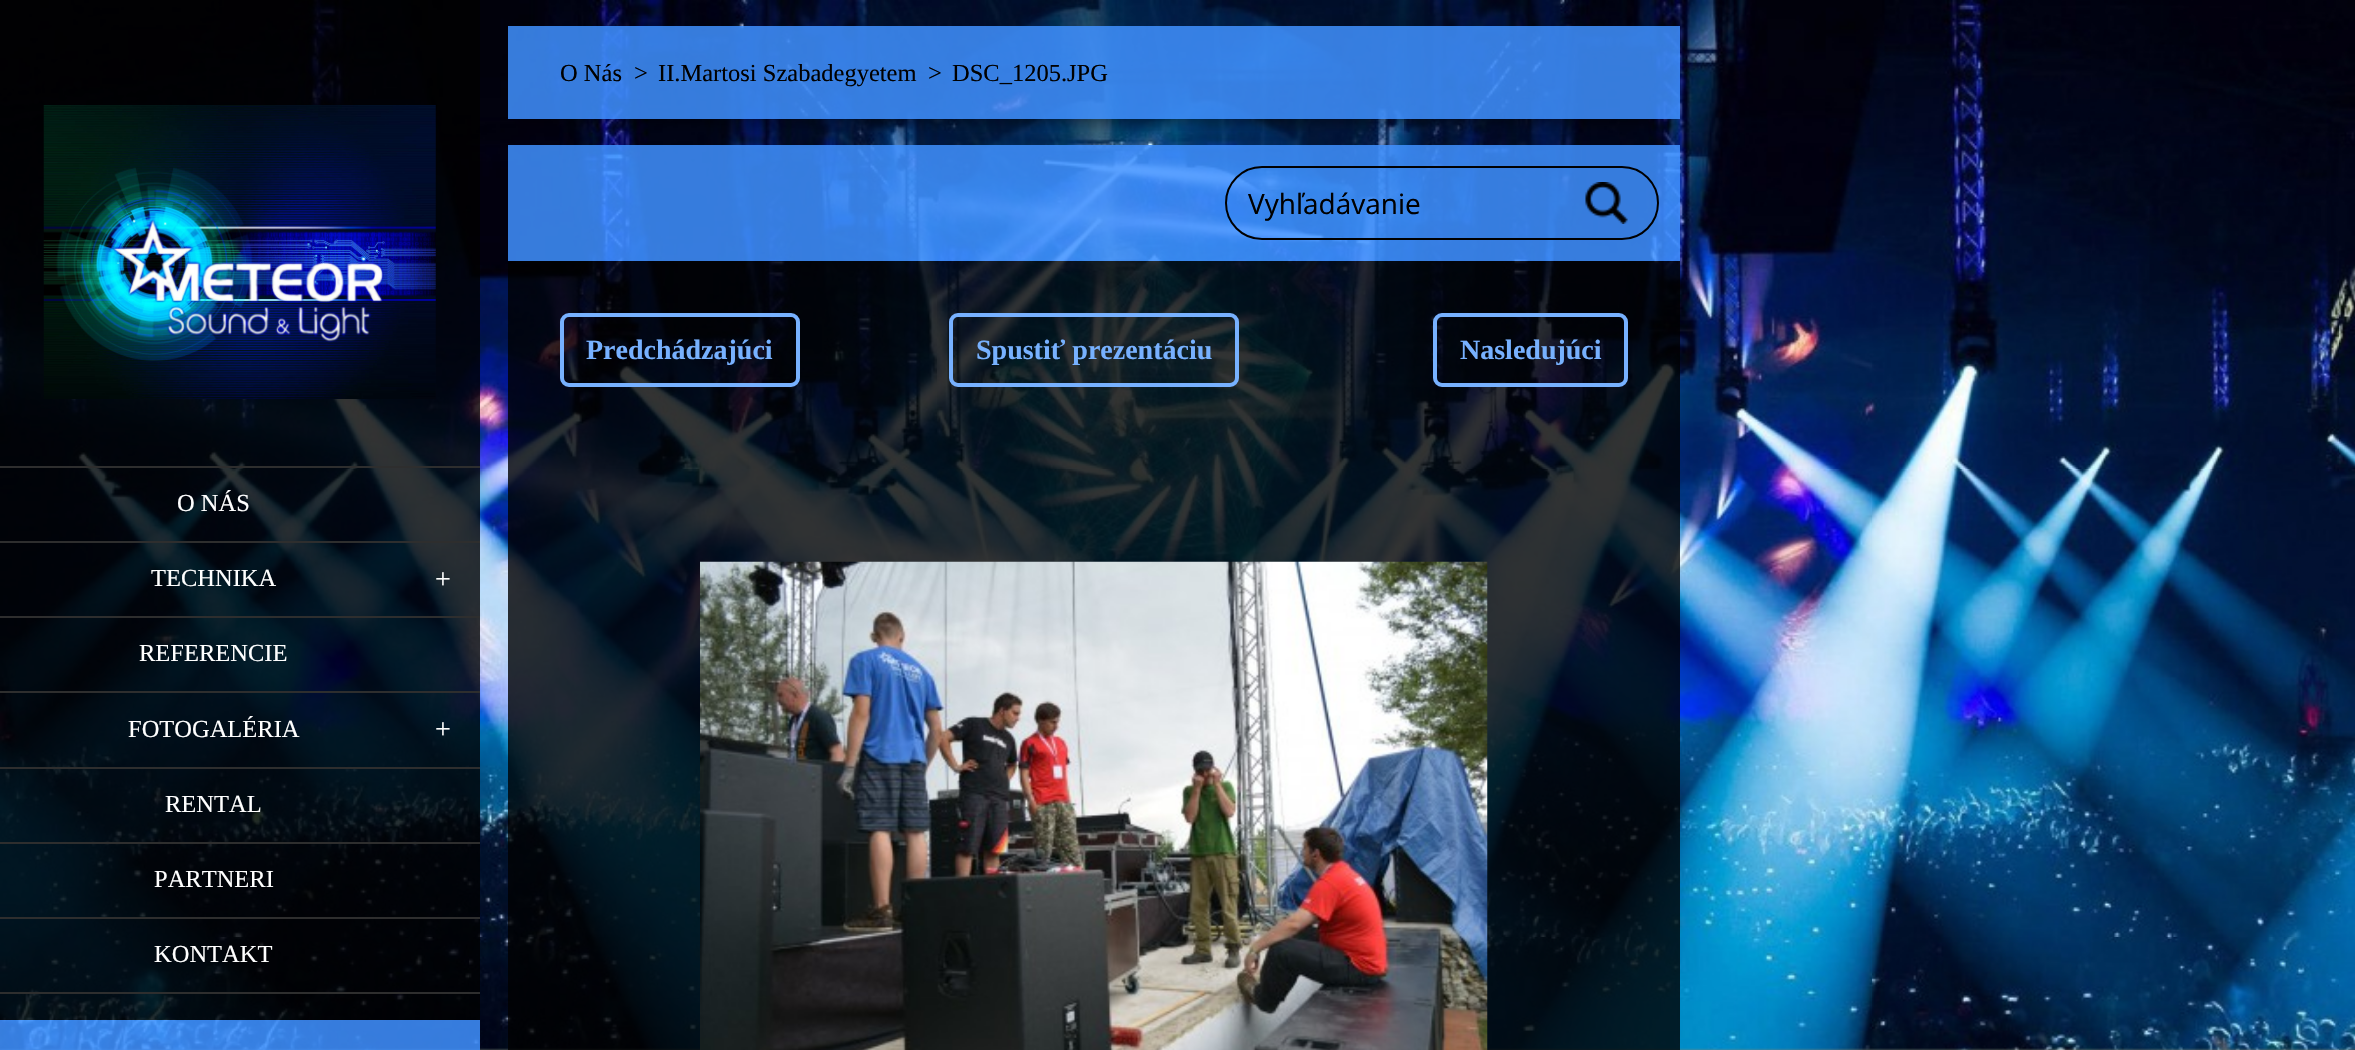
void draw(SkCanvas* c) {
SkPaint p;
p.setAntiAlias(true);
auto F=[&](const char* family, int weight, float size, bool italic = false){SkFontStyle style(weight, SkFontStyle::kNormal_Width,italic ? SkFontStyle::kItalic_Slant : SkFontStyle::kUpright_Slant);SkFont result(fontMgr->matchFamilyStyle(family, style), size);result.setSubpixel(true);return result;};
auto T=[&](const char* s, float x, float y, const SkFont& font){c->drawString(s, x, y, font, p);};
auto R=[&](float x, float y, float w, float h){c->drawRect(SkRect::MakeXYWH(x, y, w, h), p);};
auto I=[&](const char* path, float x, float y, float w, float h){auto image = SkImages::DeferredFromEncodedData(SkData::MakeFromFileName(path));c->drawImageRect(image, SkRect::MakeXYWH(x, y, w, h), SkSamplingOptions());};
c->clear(0xff7b8577);
I("1.png",0,0,2355,1050);
c->save();
c->clipRect(SkRect::MakeXYWH(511,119,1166,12));
p.setColor(0x59000000);
p.setMaskFilter(SkMaskFilter::MakeBlur(kNormal_SkBlurStyle, 5));
c->drawRect(SkRect::MakeXYWH(518,51,1152,72),p);
p.setMaskFilter(nullptr);
c->restore();
p.setColor(0xd93f91ff);
R(508,26,1172,93);
auto f1 = F("Liberation Serif",400,24.5);
p.setColor(0xff000000);
T("O Nás",560,81,f1);
T(">",634,81,f1);
T("II.Martosi Szabadegyetem",658,81,f1);
T(">",928,81,f1);
T("DSC_1205.JPG",952,81,f1);
p.setColor(0xd93f91ff);
R(508,145,1172,116);
p.setStroke(true);
p.setStrokeWidth(2);
p.setColor(0xff000000);
c->drawRoundRect(SkRect::MakeXYWH(1226,167,432,72),36,36,p);
auto f2 = F("Open Sans",400,28);
p.setStroke(false);
T("Vyhľadávanie",1248,214,f2);
I("2.png",1585,182,43,42);
p.setColor(0xcc000000);
R(508,261,1172,789);
p.setStroke(true);
p.setStrokeWidth(4);
p.setColor(0xff77b1ff);
c->drawRoundRect(SkRect::MakeXYWH(562,315,236,70),7,7,p);
auto f3 = F("Liberation Serif",700,28);
p.setStroke(false);
T("Predchádzajúci",586,359,f3);
p.setStroke(true);
c->drawRoundRect(SkRect::MakeXYWH(951,315,286,70),7,7,p);
p.setStroke(false);
T("Spustiť prezentáciu",976,359,f3);
p.setStroke(true);
c->drawRoundRect(SkRect::MakeXYWH(1435,315,191,70),7,7,p);
p.setStroke(false);
T("Nasledujúci",1460,359,f3);
I("3.png",700,561,788,489);
p.setColor(0xcc000000);
R(0,0,480,422);
I("4.png",43,105,393,294);
R(0,422,480,44);
R(0,468,480,524);
p.setColor(0xff2e2e2e);
R(0,466,480,2);
R(0,541,480,2);
p.setColor(0xffffffff);
T("O NÁS",177,511,f1);
p.setColor(0xff2e2e2e);
R(0,616,480,2);
p.setColor(0xffffffff);
T("TECHNIKA",151,586,f1);
auto f4 = F("Liberation Serif",400,28);
T("+",435,588,f4);
p.setColor(0xff2e2e2e);
R(0,691,480,2);
p.setColor(0xffffffff);
T("REFERENCIE",139,661,f1);
p.setColor(0xff2e2e2e);
R(0,767,480,2);
p.setColor(0xffffffff);
T("FOTOGALÉRIA",128,737,f1);
T("+",435,738,f4);
p.setColor(0xff2e2e2e);
R(0,842,480,2);
p.setColor(0xffffffff);
T("RENTAL",165,812,f1);
p.setColor(0xff2e2e2e);
R(0,917,480,2);
p.setColor(0xffffffff);
T("PARTNERI",154,887,f1);
p.setColor(0xff2e2e2e);
R(0,992,480,2);
p.setColor(0xffffffff);
T("KONTAKT",154,962,f1);
p.setColor(0xcc000000);
R(0,994,480,26);
p.setColor(0xd93f91ff);
R(0,1020,480,30);
}
